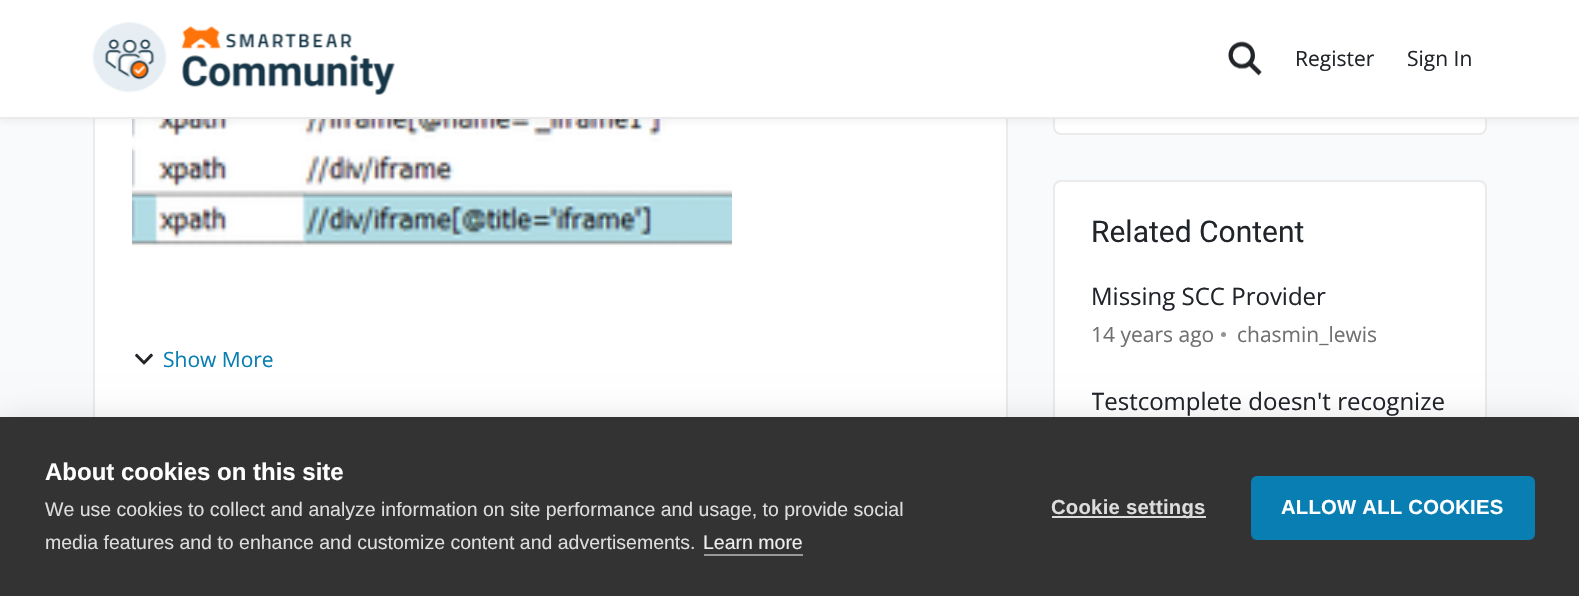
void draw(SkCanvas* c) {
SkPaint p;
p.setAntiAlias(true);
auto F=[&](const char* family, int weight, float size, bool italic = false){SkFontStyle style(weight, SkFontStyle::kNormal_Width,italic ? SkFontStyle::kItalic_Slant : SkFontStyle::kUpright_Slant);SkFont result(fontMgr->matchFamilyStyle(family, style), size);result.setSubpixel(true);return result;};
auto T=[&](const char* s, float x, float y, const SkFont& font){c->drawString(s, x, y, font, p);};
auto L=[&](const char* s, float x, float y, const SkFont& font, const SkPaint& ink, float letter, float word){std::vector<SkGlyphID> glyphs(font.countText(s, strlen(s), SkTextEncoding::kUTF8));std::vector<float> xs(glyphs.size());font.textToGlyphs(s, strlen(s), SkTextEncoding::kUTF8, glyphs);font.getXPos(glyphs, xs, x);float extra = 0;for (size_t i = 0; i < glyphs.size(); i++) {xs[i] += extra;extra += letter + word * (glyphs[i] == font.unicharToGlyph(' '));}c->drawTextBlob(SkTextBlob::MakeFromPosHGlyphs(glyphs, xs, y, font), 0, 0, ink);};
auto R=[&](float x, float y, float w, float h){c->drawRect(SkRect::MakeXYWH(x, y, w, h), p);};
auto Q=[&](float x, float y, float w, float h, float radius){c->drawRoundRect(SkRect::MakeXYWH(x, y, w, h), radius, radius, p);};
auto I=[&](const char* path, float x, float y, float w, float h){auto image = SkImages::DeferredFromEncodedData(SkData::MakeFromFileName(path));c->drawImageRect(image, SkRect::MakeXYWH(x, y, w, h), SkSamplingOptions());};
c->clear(0xfff8fafb);
p.setColor(0xffffffff);
R(93,119,915,298);
p.setStroke(true);
p.setStrokeWidth(2);
p.setColor(0x14000000);
c->drawRect(SkRect::MakeXYWH(94,-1,913,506),p);
I("3.png",132,119,600,128);
p.setStroke(false);
p.setColor(0xffffffff);
Q(1053,-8,434,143,8);
p.setStroke(true);
p.setColor(0x14000000);
c->drawRoundRect(SkRect::MakeXYWH(1054,-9,432,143),7,7,p);
p.setStroke(false);
p.setColor(0x0f333333);
p.setMaskFilter(SkMaskFilter::MakeBlur(kNormal_SkBlurStyle, 3));
c->drawRect(SkRect::MakeXYWH(0,3,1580,119),p);
p.setMaskFilter(nullptr);
p.setColor(0xffffffff);
R(0,0,1579,117);
p.setColor(0xffebebeb);
R(0,117,1579,2);
I("1.png",92,22,303,73);
I("2.png",1228,41,34,35);
auto f1 = F("Open Sans",400,21);
p.setColor(0xff212429);
T("Register",1295,66,f1);
T("Sign In",1407,66,f1);
I("4.png",135,353,18,12);
p.setColor(0xff097eb2);
T("Show More",163,367,f1);
p.setColor(0xffffffff);
Q(1053,180,434,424,8);
p.setStroke(true);
p.setColor(0x14000000);
c->drawRoundRect(SkRect::MakeXYWH(1054,181,432,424),7,7,p);
auto f2 = F("Roboto",400,30);
p.setStroke(false);
p.setColor(0xff212429);
T("Related Content",1091,242,f2);
auto f3 = F("Open Sans",400,24);
T("Missing SCC Provider",1091,305,f3);
p.setColor(0xff707070);
T("14 years ago",1091,342,f1);
p.setColor(0xff949494);
c->drawCircle(1223.5,334.5,2.5,p);
p.setColor(0xff707070);
T("chasmin_lewis",1237,342,f1);
c->save();
c->clipRect(SkRect::MakeXYWH(1092,387,356,62));
p.setColor(0xff212429);
T("Testcomplete doesn't recognize",1091,410,f3);
c->restore();
p.setColor(0x1a000000);
p.setMaskFilter(SkMaskFilter::MakeBlur(kNormal_SkBlurStyle, 15));
c->drawRect(SkRect::MakeXYWH(0,417,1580,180),p);
p.setMaskFilter(nullptr);
p.setColor(0xff333333);
R(0,417,1579,179);
auto f4 = F("Liberation Sans",700,24);
p.setColor(0xffffffff);
T("About cookies on this site",45,480,f4);
auto f5 = F("Liberation Sans",400,19.5);
p.setColor(0xffdddddd);
T("We use cookies to collect and analyze information on site performance and usage, to provide social",45,516,f5);
T("media features and to enhance and customize content and advertisements.",45,549,f5);
p.setColor(0xffeeeeee);
T("Learn more",703,549,f5);
p.setColor(0xff999999);
R(704,554,99,2);
p.setColor(0xffdddddd);
R(1052,516,154,2);
auto f6 = F("Liberation Sans",700,20.25);
L("Cookie settings",1051,514,f6,p,.25,0);
p.setColor(0xff097eb2);
Q(1251,476,284,64,6);
p.setColor(0xffffffff);
L("ALLOW ALL COOKIES",1281,514,f6,p,.25,0);
}
